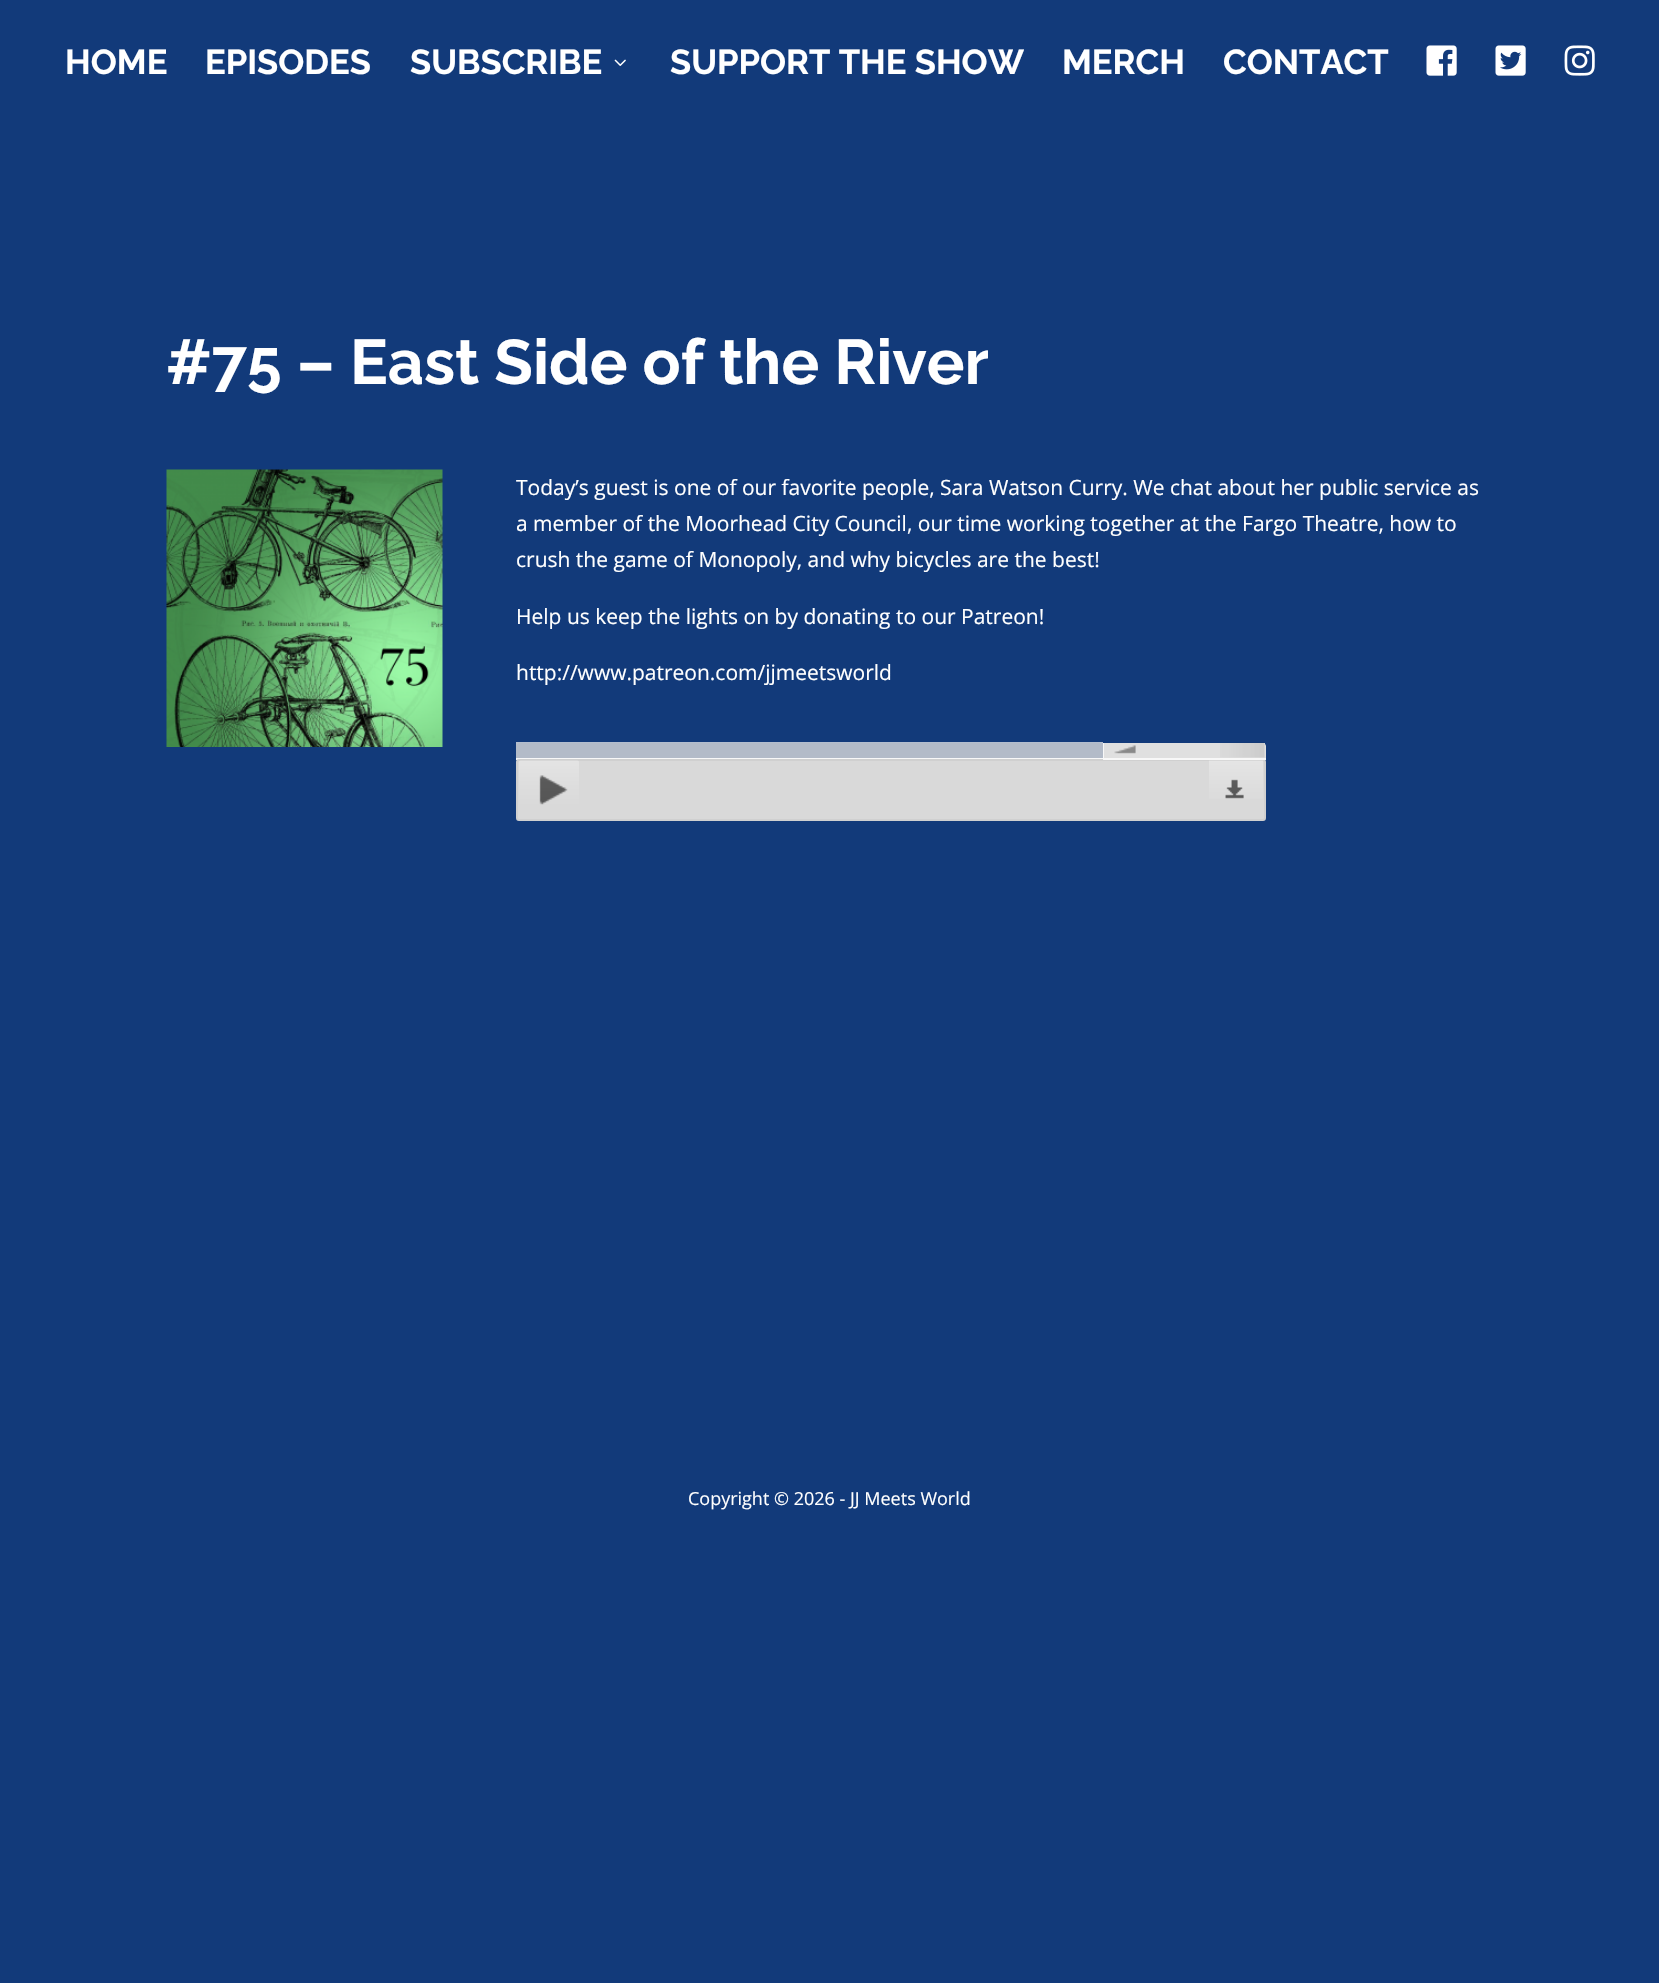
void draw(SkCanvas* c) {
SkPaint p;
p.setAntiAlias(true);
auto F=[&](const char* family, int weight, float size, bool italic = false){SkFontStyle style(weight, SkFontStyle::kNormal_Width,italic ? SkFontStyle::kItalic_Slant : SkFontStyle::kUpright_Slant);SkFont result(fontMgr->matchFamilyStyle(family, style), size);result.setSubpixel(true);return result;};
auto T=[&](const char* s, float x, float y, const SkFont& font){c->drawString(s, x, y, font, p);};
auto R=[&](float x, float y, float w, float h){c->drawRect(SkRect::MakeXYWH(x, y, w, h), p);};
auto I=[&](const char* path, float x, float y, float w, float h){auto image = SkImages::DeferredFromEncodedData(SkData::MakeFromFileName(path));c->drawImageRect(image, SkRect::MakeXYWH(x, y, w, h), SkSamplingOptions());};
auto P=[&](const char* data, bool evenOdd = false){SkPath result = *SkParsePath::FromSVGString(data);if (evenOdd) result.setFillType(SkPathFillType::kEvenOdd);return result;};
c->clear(0xff123a7a);
auto f1 = F("Raleway",700,34.5);
p.setColor(0xffffffff);
T("HOME",65,74,f1);
T("EPISODES",205,74,f1);
T("SUBSCRIBE",410,74,f1);
I("1.png",614,59,12,7);
T("SUPPORT THE SHOW",670,74,f1);
T("MERCH",1062,74,f1);
T("CONTACT",1223,74,f1);
I("2.png",1426,45,31,31);
I("3.png",1495,45,31,31);
I("4.png",1564,45,31,31);
auto f2 = F("Raleway",700,63);
T("#75 – East Side of the River",166,384,f2);
I("5.png",166,469,277,278);
auto f3 = F("Open Sans",400,21);
T("Today’s guest is one of our favorite people, Sara Watson Curry. We chat about her public service as",516,495,f3);
T("a member of the Moorhead City Council, our time working together at the Fargo Theatre, how to",516,531,f3);
T("crush the game of Monopoly, and why bicycles are the best!",516,567,f3);
T("Help us keep the lights on by donating to our Patreon!",516,624,f3);
T("http://www.patreon.com/jjmeetsworld",516,680,f3);
p.setColor(0xff0f3064);
c->drawPath(P("M519 743h744c1.5 0 3 1.5 3 3v13h-750v-13c0-1.5 1.5-3 3-3z"),p);
p.setColor(0xbfeaeaea);
R(516,742,587,16);
p.setColor(0xfff8f8f8);
R(516,758,587,2);
p.setColor(0xffd9d9d9);
c->drawRoundRect(SkRect::MakeXYWH(517,760,748,60),2,2,p);
p.setStroke(true);
p.setStrokeWidth(2);
p.setColor(0xffd0d0d0);
c->drawRoundRect(SkRect::MakeXYWH(517,760,748,60),2,2,p);
I("6.png",519,760,60,45);
I("7.png",1209,760,54,39);
p.setStroke(false);
p.setColor(0xffe0e0e0);
c->drawPath(P("M1103 743h160c1.5 0 3 1.5 3 3v13h-163z"),p);
p.setColor(0xfff8f8f8);
R(1103,758,163,2);
R(1103,743,2,16);
p.setColor(0xffe0e0e0);
R(1104,743,1,15);
I("8.png",1114,745,22,9);
R(1263,743,2,1);
I("9.png",1220,742,45,16);
auto f4 = F("Open Sans",400,18);
p.setColor(0xffffffff);
T("Copyright © 2026 - JJ Meets World",688,1505,f4);
}
